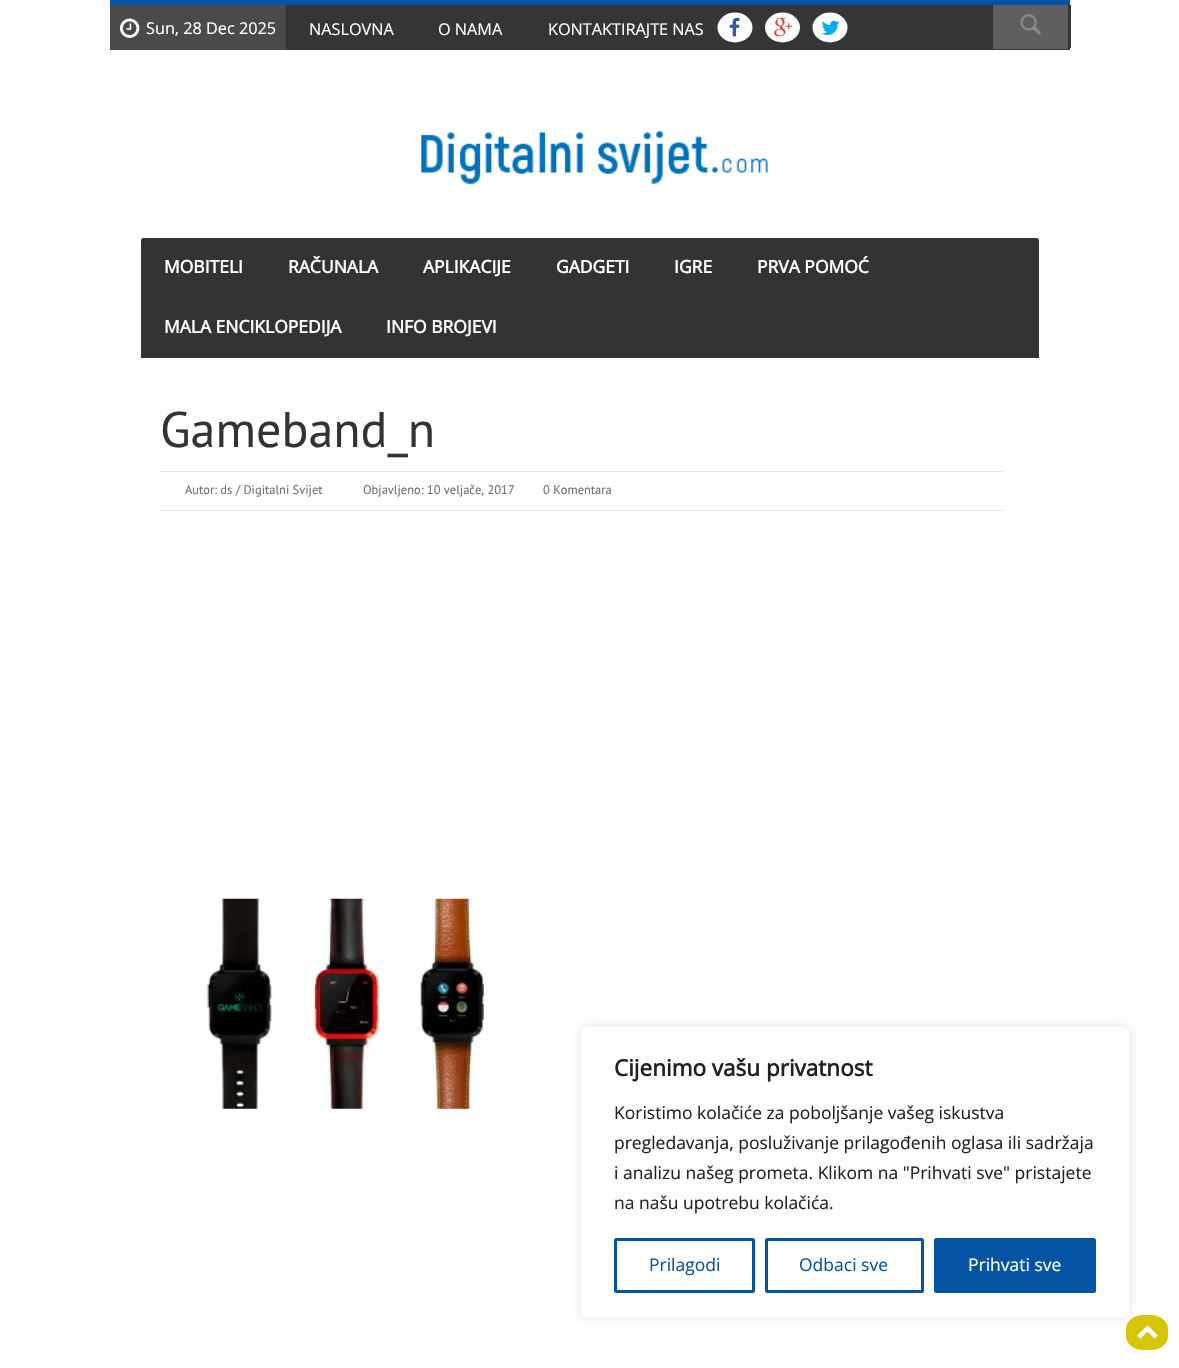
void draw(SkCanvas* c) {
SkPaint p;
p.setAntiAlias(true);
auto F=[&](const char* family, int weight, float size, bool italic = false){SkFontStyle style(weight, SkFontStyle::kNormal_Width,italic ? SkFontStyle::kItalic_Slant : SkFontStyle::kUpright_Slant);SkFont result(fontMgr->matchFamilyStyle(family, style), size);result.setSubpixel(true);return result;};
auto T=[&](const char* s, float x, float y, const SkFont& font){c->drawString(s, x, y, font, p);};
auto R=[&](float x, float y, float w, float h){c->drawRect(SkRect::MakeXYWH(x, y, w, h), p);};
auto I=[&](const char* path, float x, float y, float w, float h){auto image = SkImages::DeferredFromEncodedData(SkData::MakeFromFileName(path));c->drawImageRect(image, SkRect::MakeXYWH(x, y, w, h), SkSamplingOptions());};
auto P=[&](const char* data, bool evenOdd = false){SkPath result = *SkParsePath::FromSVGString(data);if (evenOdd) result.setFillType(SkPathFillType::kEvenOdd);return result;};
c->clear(0xffffffff);
p.setColor(0xff0554a3);
R(110,0,960,5);
p.setColor(0xff353535);
R(1070,5,1,43);
R(286,5,784,45);
p.setColor(0xfffdfdfd);
c->drawOval(SkRect::MakeXYWH(717.5,12.5,35,30),p);
I("1.png",729,17,11,20);
c->drawOval(SkRect::MakeXYWH(765,12.5,35,30),p);
I("2.png",774,17,18,20);
c->drawOval(SkRect::MakeXYWH(812.5,12.5,35,30),p);
I("3.png",822,20,18,15);
p.setColor(0xff4a4a4a);
R(110,5,176,45);
I("4.png",120,18,20,20);
auto f1 = F("Open Sans",400,16.25);
p.setColor(0xffffffff);
T("Sun, 28 Dec 2025",146,34,f1);
T("NASLOVNA",309,35,f1);
T("O NAMA",438,35,f1);
T("KONTAKTIRAJTE NAS",548,35,f1);
p.setColor(0xff5f5f5f);
R(993,5,75,44);
I("5.png",1020,13,22,22);
I("6.png",421,131,347,53);
p.setColor(0xff333333);
c->drawPath(P("M143.5 238h893c1.5 0 2.5 1 2.5 2.5v117.5h-898v-117.5c0-1.5 1-2.5 2.5-2.5z"),p);
auto f2 = F("Open Sans",700,17.5);
p.setColor(0xffffffff);
T("MOBITELI",164,273,f2);
T("RAČUNALA",288,273,f2);
T("APLIKACIJE",423,273,f2);
T("GADGETI",556,273,f2);
T("IGRE",674,273,f2);
T("PRVA POMOĆ",757,273,f2);
T("MALA ENCIKLOPEDIJA",164,333,f2);
T("INFO BROJEVI",386,333,f2);
auto f3 = F("PT Sans",400,50);
p.setColor(0xff333333);
T("Gameband_n",160,447,f3);
p.setColor(0xffe4e4e4);
R(160,471,843,1);
R(160,510,843,1);
auto f4 = F("PT Sans",400,12.5);
p.setColor(0xff707070);
T("Autor: ds / Digitalni Svijet",185,494,f4);
T("Objavljeno: 10 veljače, 2017",363,494,f4);
T("0 Komentara",543,494,f4);
I("7.png",205,898,280,211);
p.setColor(0xffd7c50a);
c->drawPath(P("M1143 1315h8c9 0 17 6 17 14v7c0 8-8 14-17 14h-8c-9 0-17-6-17-14v-7c0-8 8-14 17-14z"),p);
I("8.png",1137,1325,21,14);
p.setColor(0x4dacabab);
p.setMaskFilter(SkMaskFilter::MakeBlur(kNormal_SkBlurStyle, 6));
c->drawRoundRect(SkRect::MakeXYWH(580,1025,550,293),8,8,p);
p.setMaskFilter(nullptr);
p.setColor(0xffffffff);
c->drawRoundRect(SkRect::MakeXYWH(580.5,1026.5,549,292),7.5,7.5,p);
p.setStroke(true);
p.setStrokeWidth(1);
p.setColor(0xfff4f4f4);
c->drawRoundRect(SkRect::MakeXYWH(580.5,1026.5,549,292),7.5,7.5,p);
auto f5 = F("Open Sans",700,22.5);
p.setStroke(false);
p.setColor(0xff212121);
T("Cijenimo vašu privatnost",614,1076,f5);
auto f6 = F("Open Sans",400,17.5);
T("Koristimo kolačiće za poboljšanje vašeg iskustva",614,1119,f6);
T("pregledavanja, posluživanje prilagođenih oglasa ili sadržaja",614,1149,f6);
T("i analizu našeg prometa. Klikom na \"Prihvati sve\" pristajete",614,1179,f6);
T("na našu upotrebu kolačića.",614,1209,f6);
p.setStroke(true);
p.setStrokeWidth(3);
p.setColor(0xff0554a3);
c->drawRoundRect(SkRect::MakeXYWH(615.5,1239.5,138,52),1,1,p);
p.setStroke(false);
T("Prilagodi",649,1271,f6);
p.setStroke(true);
c->drawRoundRect(SkRect::MakeXYWH(766.5,1239.5,156,52),1,1,p);
p.setStroke(false);
T("Odbaci sve",799,1271,f6);
c->drawRoundRect(SkRect::MakeXYWH(935.5,1239.5,159,52),1,1,p);
p.setStroke(true);
c->drawRoundRect(SkRect::MakeXYWH(935.5,1239.5,159,52),1,1,p);
p.setStroke(false);
p.setColor(0xffffffff);
T("Prihvati sve",968,1271,f6);
}
